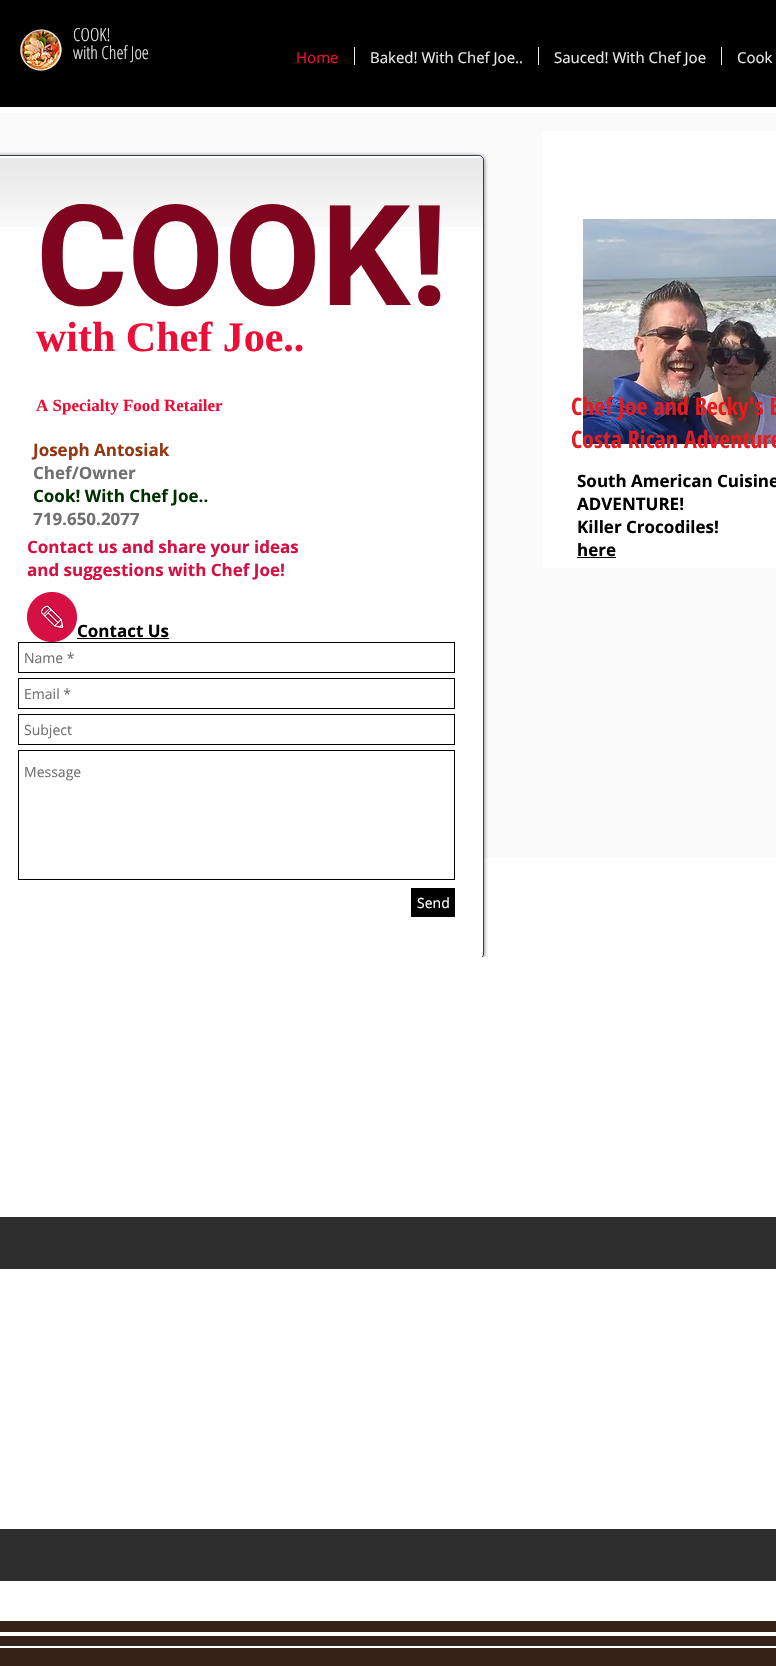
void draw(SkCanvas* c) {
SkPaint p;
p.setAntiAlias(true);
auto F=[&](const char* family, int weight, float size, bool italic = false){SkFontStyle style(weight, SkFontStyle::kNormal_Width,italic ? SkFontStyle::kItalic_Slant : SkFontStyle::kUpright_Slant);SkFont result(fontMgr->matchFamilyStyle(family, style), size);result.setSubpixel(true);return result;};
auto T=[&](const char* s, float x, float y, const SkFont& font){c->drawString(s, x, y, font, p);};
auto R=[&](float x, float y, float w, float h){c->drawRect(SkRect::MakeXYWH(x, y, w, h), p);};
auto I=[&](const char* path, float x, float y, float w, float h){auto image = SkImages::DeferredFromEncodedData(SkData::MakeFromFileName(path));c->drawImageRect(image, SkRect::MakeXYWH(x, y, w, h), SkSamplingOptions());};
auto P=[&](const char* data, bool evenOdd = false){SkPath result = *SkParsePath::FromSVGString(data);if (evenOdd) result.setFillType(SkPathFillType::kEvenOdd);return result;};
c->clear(0xffffffff);
p.setColor(0xff000000);
R(0,0,776,107);
I("1.png",20,29,42,42);
auto f1 = F("Open Sans Condensed",300,18);
p.setColor(0xffeaeaea);
T("COOK!",73,41,f1);
T("with Chef Joe",73,59,f1);
auto f2 = F("Open Sans",400,15);
p.setColor(0xffed0e37);
T("Home",296,63,f2);
p.setColor(0xffeaeaea);
R(354,47,1,18);
T("Baked! With Chef Joe..",370,63,f2);
R(538,47,1,18);
T("Sauced! With Chef Joe",554,63,f2);
R(721,47,1,18);
T("Cook",737,63,f2);
p.setColor(0xfffafafa);
R(0,113,776,745);
p.setColor(0x99000000);
p.setMaskFilter(SkMaskFilter::MakeBlur(kNormal_SkBlurStyle, 2));
c->drawRoundRect(SkRect::MakeXYWH(-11,156,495,804),5,5,p);
p.setMaskFilter(nullptr);
p.setColor(0xffffffff);
c->drawPath(P("M0 155h479c3 0 5 2 5 5v794c0 3-2 5-5 5h-479z"),p);
I("2.png",0,158,484,69);
p.setStroke(true);
p.setStrokeWidth(1);
p.setColor(0xff324158);
c->drawRoundRect(SkRect::MakeXYWH(-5.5,155.5,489,803),4.5,4.5,p);
auto f3 = F("Roboto",700,140);
p.setStroke(false);
p.setColor(0xff7f051e);
T("COOK!",36,305,f3);
auto f4 = F("Liberation Serif",700,42);
p.setColor(0xffed0e37);
T("with Chef Joe..",36,351,f4);
auto f5 = F("Liberation Serif",700,17);
T("A Specialty Food Retailer",36,411,f5);
auto f6 = F("Open Sans",700,17);
p.setColor(0xff943813);
T("Joseph Antosiak",33,456,f6);
p.setColor(0xff717070);
T("Chef/Owner",33,479,f6);
p.setColor(0xff003000);
T("Cook! With Chef Joe..",33,502,f6);
p.setColor(0xff717070);
T("719.650.2077",33,525,f6);
p.setColor(0xffd61043);
T("Contact us and share your ideas",27,553,f6);
T("and suggestions with Chef Joe!",27,576,f6);
I("3.png",27,592,50,50);
p.setColor(0xff000000);
T("Contact Us",77,637,f6);
R(77,638,92,1);
p.setStroke(true);
c->drawRect(SkRect::MakeXYWH(18.5,642.5,436,30),p);
auto f7 = F("Open Sans",400,14);
p.setStroke(false);
p.setColor(0xff717070);
T("Name *",24,663,f7);
p.setStroke(true);
p.setColor(0xff000000);
c->drawRect(SkRect::MakeXYWH(18.5,678.5,436,30),p);
p.setStroke(false);
p.setColor(0xff717070);
T("Email *",24,699,f7);
p.setStroke(true);
p.setColor(0xff000000);
c->drawRect(SkRect::MakeXYWH(18.5,714.5,436,30),p);
p.setStroke(false);
p.setColor(0xff717070);
T("Subject",24,735,f7);
p.setStroke(true);
p.setColor(0xff000000);
c->drawRect(SkRect::MakeXYWH(18.5,750.5,436,129),p);
p.setStroke(false);
p.setColor(0xff717070);
T("Message",24,777,f7);
p.setColor(0xff000000);
R(411,888,44,29);
p.setColor(0xffffffff);
T("Send",417,908,f7);
R(542,131,234,437);
I("4.png",583,219,193,225);
auto f8 = F("Open Sans Condensed",700,24);
p.setColor(0xffe21c21);
T("Chef Joe and Becky's E",571,415,f8);
T("Costa Rican Adventure",571,448,f8);
p.setColor(0xff000000);
T("South American Cuisine",577,487,f6);
T("ADVENTURE!",577,510,f6);
T("Killer Crocodiles!",577,533,f6);
T("here",577,556,f6);
R(577,557,39,1);
p.setColor(0xffffffff);
R(327,957,161,7);
R(0,958,327,6);
p.setColor(0xff2f2e2e);
R(0,1217,776,52);
R(0,1529,776,52);
p.setColor(0xff342216);
R(0,1621,776,45);
p.setColor(0xffffffff);
R(0,1632,776,4);
R(0,1646,776,2);
}
